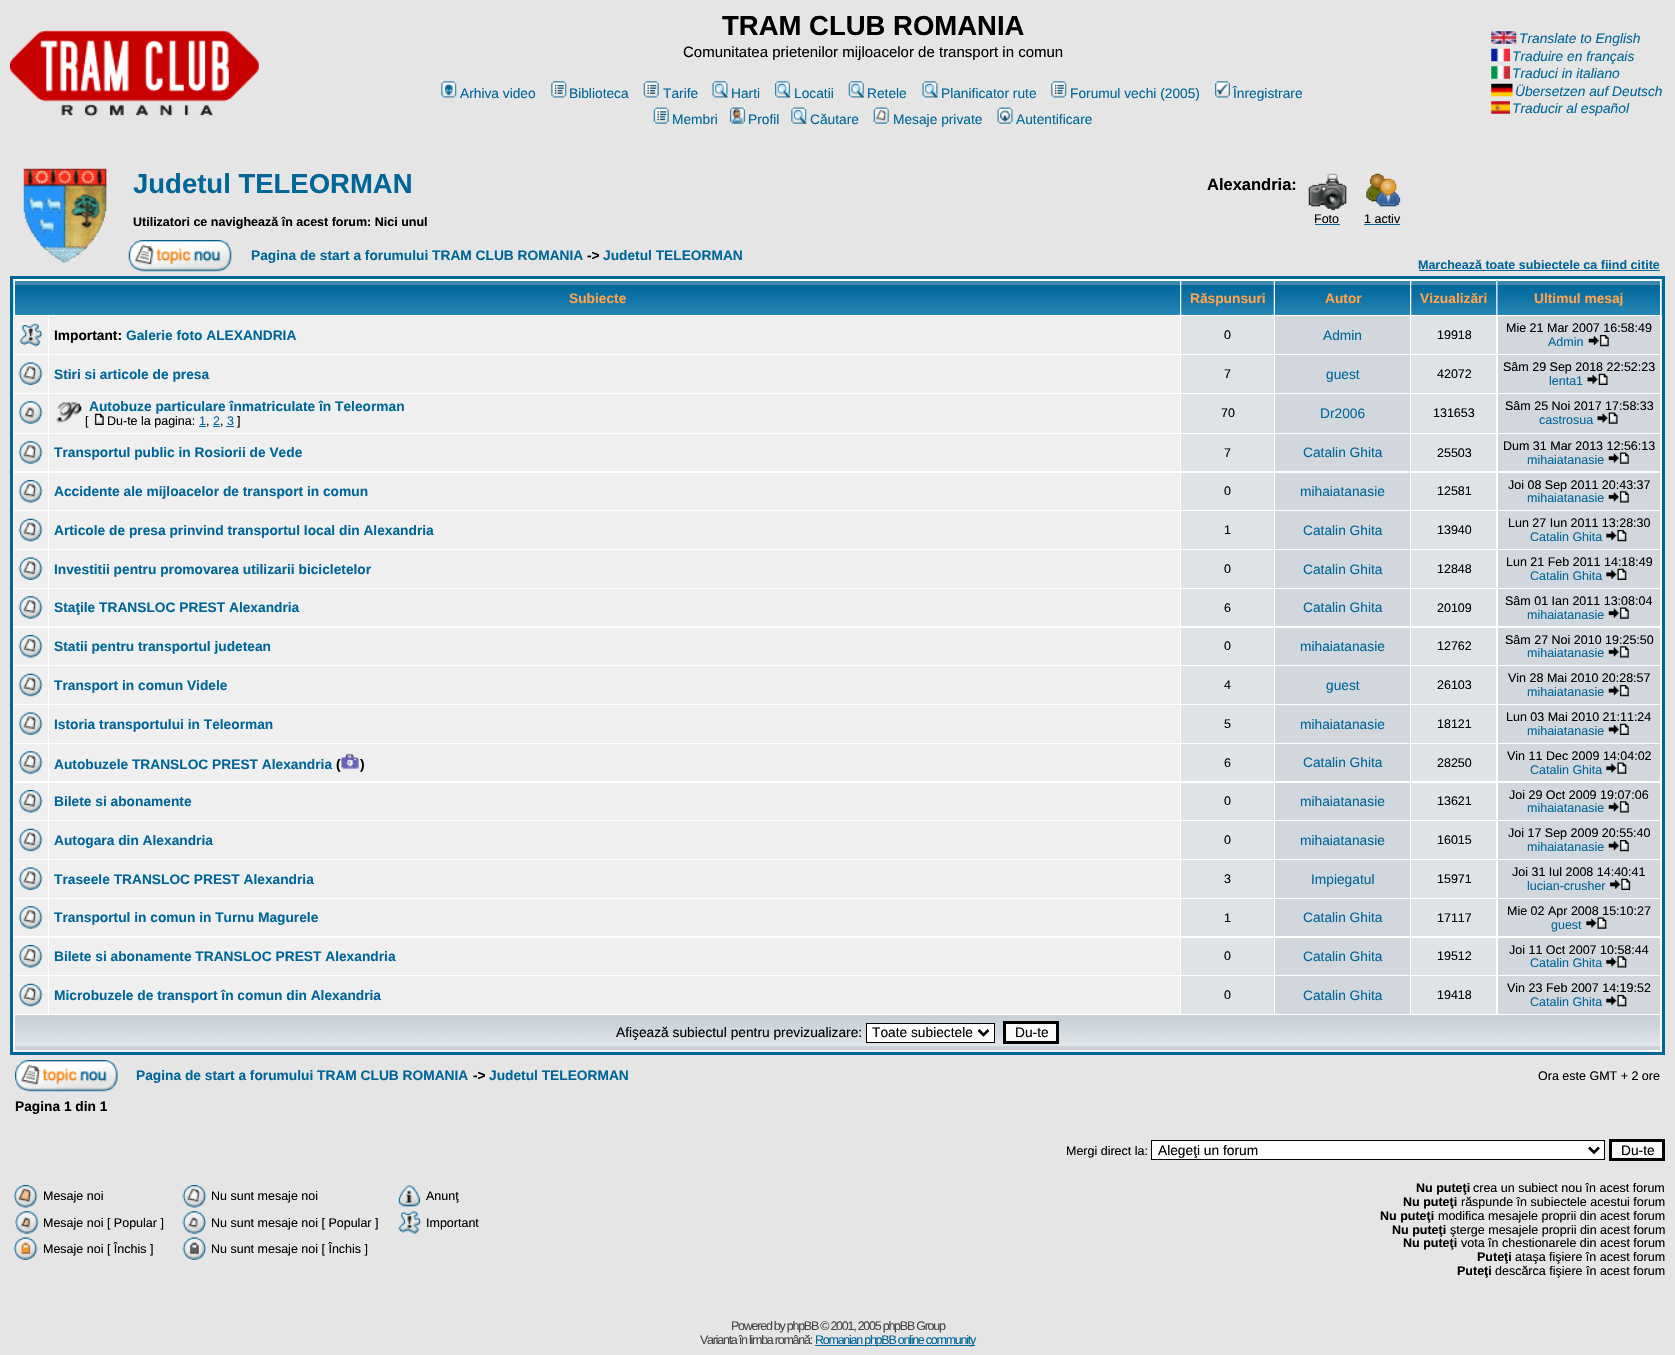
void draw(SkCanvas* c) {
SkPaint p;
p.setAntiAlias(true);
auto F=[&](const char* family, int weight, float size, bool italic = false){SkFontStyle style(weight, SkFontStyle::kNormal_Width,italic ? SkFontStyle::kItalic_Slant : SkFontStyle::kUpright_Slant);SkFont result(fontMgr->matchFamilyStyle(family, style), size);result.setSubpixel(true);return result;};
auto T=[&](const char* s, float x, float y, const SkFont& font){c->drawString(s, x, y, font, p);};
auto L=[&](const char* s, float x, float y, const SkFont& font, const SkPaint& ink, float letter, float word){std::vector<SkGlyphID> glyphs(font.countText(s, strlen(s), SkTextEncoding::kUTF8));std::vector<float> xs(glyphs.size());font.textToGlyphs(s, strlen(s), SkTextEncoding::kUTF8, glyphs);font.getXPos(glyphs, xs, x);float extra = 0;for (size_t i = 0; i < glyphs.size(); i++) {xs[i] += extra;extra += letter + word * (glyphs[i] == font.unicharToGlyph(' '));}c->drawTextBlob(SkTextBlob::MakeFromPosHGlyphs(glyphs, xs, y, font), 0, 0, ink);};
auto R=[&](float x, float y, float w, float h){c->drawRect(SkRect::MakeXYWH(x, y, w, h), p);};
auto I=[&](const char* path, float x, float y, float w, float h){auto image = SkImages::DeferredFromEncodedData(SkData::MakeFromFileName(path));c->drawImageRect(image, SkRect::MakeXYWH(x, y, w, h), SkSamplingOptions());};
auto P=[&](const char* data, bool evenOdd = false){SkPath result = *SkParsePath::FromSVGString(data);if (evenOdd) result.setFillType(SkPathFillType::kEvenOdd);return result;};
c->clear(0xffe5e5e5);
I("1.png",10,30,250,87);
auto f1 = F("Liberation Sans",700,27.5);
p.setColor(0xff000000);
T("TRAM CLUB ROMANIA",722,35,f1);
auto f2 = F("Liberation Sans",400,15);
T("Comunitatea prietenilor mijloacelor de transport in comun",683,57,f2);
I("2.png",441,81,16,17);
auto f3 = F("Liberation Sans",400,13.75);
p.setColor(0xff006699);
T("Arhiva video",460,98,f3);
I("3.png",551,81,16,17);
T("Biblioteca",569,98,f3);
I("4.png",643,81,16,17);
T("Tarife",663,98,f3);
I("5.png",712,81,16,17);
T("Harti",731,98,f3);
I("6.png",775,81,15,17);
T("Locatii",794,98,f3);
I("7.png",848,81,16,17);
T("Retele",867,98,f3);
I("8.png",922,81,16,17);
T("Planificator rute",941,98,f3);
I("3.png",1051,81,16,17);
T("Forumul vechi (2005)",1070,98,f3);
I("9.png",1215,81,15,17);
T("Înregistrare",1233,98,f3);
I("10.png",653,107,16,17);
T("Membri",672,124,f3);
I("11.png",730,107,15,17);
T("Profil",748,124,f3);
I("12.png",791,107,16,17);
T("Căutare",810,124,f3);
I("13.png",873,107,16,17);
T("Mesaje private",893,124,f3);
I("14.png",997,107,16,17);
T("Autentificare",1016,124,f3);
I("15.png",1491,31,26,13);
auto f4 = F("Liberation Sans",400,13.75,true);
T("Translate to English",1519,43,f4);
I("16.png",1491,48,19,14);
T("Traduire en français",1512,61,f4);
I("17.png",1491,66,19,13);
T("Traduci in italiano",1512,78,f4);
I("18.png",1491,83,22,14);
T("Übersetzen auf Deutsch",1515,96,f4);
I("19.png",1491,101,19,13);
T("Traducir al español",1512,113,f4);
I("20.png",23,168,84,95);
T("Judetul TELEORMAN",133,193,f1);
auto f5 = F("Liberation Sans",700,12.5);
p.setColor(0xff000000);
T("Utilizatori ce navighează în acest forum: Nici unul",133,226,f5);
auto f6 = F("Liberation Sans",700,16.5);
T("Alexandria:",1207,190,f6);
I("21.png",1308,173,39,38);
auto f7 = F("Liberation Sans",400,12.5);
T("Foto",1314,223,f7);
p.setColor(0xff006699);
R(1315,224,25,1);
I("22.png",1366,173,35,34);
p.setColor(0xff000000);
T("1 activ",1364,223,f7);
p.setColor(0xff006699);
R(1364,224,36,1);
I("23.png",128,240,104,32);
auto f8 = F("Liberation Sans",700,13.75);
T("Pagina de start a forumului TRAM CLUB ROMANIA",251,260,f8);
p.setColor(0xff000000);
T("->",587,260,f8);
p.setColor(0xff006699);
T("Judetul TELEORMAN",603,260,f8);
T("Marchează toate subiectele ca fiind citite",1418,269,f5);
R(1419,270,241,1);
p.setColor(0xffffffff);
c->drawRect(SkRect::MakeXYWH(11.5,277.5,1652,776),p);
p.setStroke(true);
p.setStrokeWidth(3);
p.setColor(0xff006699);
c->drawRect(SkRect::MakeXYWH(11.5,277.5,1652,776),p);
I("24.png",13,280,1167,35);
p.setStroke(false);
p.setColor(0xffffffff);
R(14,280,1166,1);
R(14,280,1,35);
p.setColor(0xffffa34f);
T("Subiecte",569,303,f8);
I("25.png",1181,281,93,34);
T("Răspunsuri",1190,303,f8);
I("26.png",1275,281,135,34);
T("Autor",1325,303,f8);
I("27.png",1411,280,86,35);
p.setColor(0xffffffff);
R(1411,280,85,1);
p.setColor(0xffffa34f);
T("Vizualizări",1420,303,f8);
I("28.png",1497,280,165,35);
p.setColor(0xffffffff);
R(1498,280,163,1);
R(1660,280,1,35);
p.setColor(0xffffa34f);
T("Ultimul mesaj",1534,303,f8);
p.setColor(0xffefefef);
R(14,316,34,38);
I("29.png",19,323,24,24);
R(49,316,1131,38);
p.setColor(0xff000000);
T("Important:",54,340,f8);
p.setColor(0xff006699);
T("Galerie foto ALEXANDRIA",126,340,f8);
p.setColor(0xffdee3e7);
R(1181,316,93,38);
p.setColor(0xff000000);
T("0",1224,339,f7);
p.setColor(0xffd1d7dc);
R(1275,316,135,38);
p.setColor(0xff006699);
T("Admin",1323,340,f3);
p.setColor(0xffdee3e7);
R(1411,316,85,38);
p.setColor(0xff000000);
T("19918",1437,339,f7);
p.setColor(0xffd1d7dc);
R(1498,316,162,38);
p.setColor(0xff000000);
T("Mie 21 Mar 2007 16:58:49",1506,332,f7);
p.setColor(0xff006699);
T("Admin",1548,346,f7);
I("30.png",1588,335,21,12);
p.setColor(0xffefefef);
R(14,355,34,38);
I("31.png",18,362,25,23);
R(49,355,1131,38);
p.setColor(0xff006699);
T("Stiri si articole de presa",54,379,f8);
p.setColor(0xffdee3e7);
R(1181,355,93,38);
p.setColor(0xff000000);
T("7",1224,378,f7);
p.setColor(0xffd1d7dc);
R(1275,355,135,38);
p.setColor(0xff006699);
T("guest",1326,379,f3);
p.setColor(0xffdee3e7);
R(1411,355,85,38);
p.setColor(0xff000000);
T("42072",1437,378,f7);
p.setColor(0xffd1d7dc);
R(1498,355,162,38);
p.setColor(0xff000000);
T("Sâm 29 Sep 2018 22:52:23",1503,371,f7);
p.setColor(0xff006699);
T("lenta1",1549,385,f7);
I("32.png",1587,373,21,12);
p.setColor(0xffefefef);
R(14,394,34,39);
I("33.png",18,401,25,23);
R(49,394,1131,39);
I("34.png",56,402,26,21);
p.setColor(0xff006699);
T("Autobuze particulare înmatriculate în Teleorman",89,411,f8);
p.setColor(0xff000000);
T("[",85,425,f7);
I("35.png",94,413,10,12);
T("Du-te la pagina:",107,425,f7);
p.setColor(0xff006699);
T("1",199,425,f7);
p.setColor(0xff000000);
T(",",206,425,f7);
p.setColor(0xff006699);
R(199,426,7,1);
T("2",213,425,f7);
p.setColor(0xff000000);
T(",",220,425,f7);
p.setColor(0xff006699);
R(213,426,7,1);
R(226,426,8,1);
T("3",227,425,f7);
p.setColor(0xff000000);
T("]",237,425,f7);
p.setColor(0xffdee3e7);
R(1181,394,93,39);
p.setColor(0xff000000);
T("70",1221,417,f7);
p.setColor(0xffd1d7dc);
R(1275,394,135,39);
p.setColor(0xff006699);
T("Dr2006",1320,418,f3);
p.setColor(0xffdee3e7);
R(1411,394,85,39);
p.setColor(0xff000000);
T("131653",1433,417,f7);
p.setColor(0xffd1d7dc);
R(1498,394,162,39);
p.setColor(0xff000000);
T("Sâm 25 Noi 2017 17:58:33",1505,410,f7);
p.setColor(0xff006699);
T("castrosua",1539,424,f7);
I("36.png",1597,412,21,12);
p.setColor(0xffefefef);
R(14,434,34,37);
I("37.png",18,441,25,23);
R(49,434,1131,37);
p.setColor(0xff006699);
T("Transportul public in Rosiorii de Vede",54,457,f8);
p.setColor(0xffdee3e7);
R(1181,434,93,37);
p.setColor(0xff000000);
T("7",1224,457,f7);
p.setColor(0xffd1d7dc);
R(1275,434,135,37);
p.setColor(0xff006699);
T("Catalin Ghita",1303,457,f3);
p.setColor(0xffdee3e7);
R(1411,434,85,37);
p.setColor(0xff000000);
T("25503",1437,457,f7);
p.setColor(0xffd1d7dc);
R(1498,434,162,37);
p.setColor(0xff000000);
T("Dum 31 Mar 2013 12:56:13",1503,450,f7);
p.setColor(0xff006699);
T("mihaiatanasie",1527,464,f7);
I("38.png",1608,452,21,12);
p.setColor(0xffefefef);
R(14,473,34,37);
I("39.png",18,480,25,23);
R(49,473,1131,37);
p.setColor(0xff006699);
T("Accidente ale mijloacelor de transport in comun",54,496,f8);
p.setColor(0xffdee3e7);
R(1181,473,93,37);
p.setColor(0xff000000);
T("0",1224,495,f7);
p.setColor(0xffd1d7dc);
R(1275,473,135,37);
p.setColor(0xff006699);
T("mihaiatanasie",1300,496,f3);
p.setColor(0xffdee3e7);
R(1411,473,85,37);
p.setColor(0xff000000);
T("12581",1437,495,f7);
p.setColor(0xffd1d7dc);
R(1498,473,162,37);
p.setColor(0xff000000);
T("Joi 08 Sep 2011 20:43:37",1508,489,f7);
p.setColor(0xff006699);
T("mihaiatanasie",1527,502,f7);
I("40.png",1608,491,21,12);
p.setColor(0xffefefef);
R(14,511,34,38);
I("41.png",18,518,25,24);
R(49,511,1131,38);
p.setColor(0xff006699);
T("Articole de presa prinvind transportul local din Alexandria",54,535,f8);
p.setColor(0xffdee3e7);
R(1181,511,93,38);
p.setColor(0xff000000);
T("1",1224,534,f7);
p.setColor(0xffd1d7dc);
R(1275,511,135,38);
p.setColor(0xff006699);
T("Catalin Ghita",1303,535,f3);
p.setColor(0xffdee3e7);
R(1411,511,85,38);
p.setColor(0xff000000);
T("13940",1437,534,f7);
p.setColor(0xffd1d7dc);
R(1498,511,162,38);
p.setColor(0xff000000);
T("Lun 27 Iun 2011 13:28:30",1508,527,f7);
p.setColor(0xff006699);
T("Catalin Ghita",1530,541,f7);
I("42.png",1606,530,21,12);
p.setColor(0xffefefef);
R(14,550,34,38);
I("31.png",18,557,25,23);
R(49,550,1131,38);
p.setColor(0xff006699);
T("Investitii pentru promovarea utilizarii bicicletelor",54,574,f8);
p.setColor(0xffdee3e7);
R(1181,550,93,38);
p.setColor(0xff000000);
T("0",1224,573,f7);
p.setColor(0xffd1d7dc);
R(1275,550,135,38);
p.setColor(0xff006699);
T("Catalin Ghita",1303,574,f3);
p.setColor(0xffdee3e7);
R(1411,550,85,38);
p.setColor(0xff000000);
T("12848",1437,573,f7);
p.setColor(0xffd1d7dc);
R(1498,550,162,38);
p.setColor(0xff000000);
T("Lun 21 Feb 2011 14:18:49",1506,566,f7);
p.setColor(0xff006699);
T("Catalin Ghita",1530,580,f7);
I("43.png",1606,568,21,12);
p.setColor(0xffefefef);
R(14,589,34,37);
I("37.png",18,596,25,23);
R(49,589,1131,37);
p.setColor(0xff006699);
T("Staţile TRANSLOC PREST Alexandria",54,612,f8);
p.setColor(0xffdee3e7);
R(1181,589,93,37);
p.setColor(0xff000000);
T("6",1224,612,f7);
p.setColor(0xffd1d7dc);
R(1275,589,135,37);
p.setColor(0xff006699);
T("Catalin Ghita",1303,612,f3);
p.setColor(0xffdee3e7);
R(1411,589,85,37);
p.setColor(0xff000000);
T("20109",1437,612,f7);
p.setColor(0xffd1d7dc);
R(1498,589,162,37);
p.setColor(0xff000000);
T("Sâm 01 Ian 2011 13:08:04",1505,605,f7);
p.setColor(0xff006699);
T("mihaiatanasie",1527,619,f7);
I("38.png",1608,607,21,12);
p.setColor(0xffefefef);
R(14,628,34,37);
I("39.png",18,635,25,23);
R(49,628,1131,37);
p.setColor(0xff006699);
T("Statii pentru transportul judetean",54,651,f8);
p.setColor(0xffdee3e7);
R(1181,628,93,37);
p.setColor(0xff000000);
T("0",1224,650,f7);
p.setColor(0xffd1d7dc);
R(1275,628,135,37);
p.setColor(0xff006699);
T("mihaiatanasie",1300,651,f3);
p.setColor(0xffdee3e7);
R(1411,628,85,37);
p.setColor(0xff000000);
T("12762",1437,650,f7);
p.setColor(0xffd1d7dc);
R(1498,628,162,37);
p.setColor(0xff000000);
T("Sâm 27 Noi 2010 19:25:50",1505,644,f7);
p.setColor(0xff006699);
T("mihaiatanasie",1527,657,f7);
I("40.png",1608,646,21,12);
p.setColor(0xffefefef);
R(14,666,34,38);
I("41.png",18,673,25,24);
R(49,666,1131,38);
p.setColor(0xff006699);
T("Transport in comun Videle",54,690,f8);
p.setColor(0xffdee3e7);
R(1181,666,93,38);
p.setColor(0xff000000);
T("4",1224,689,f7);
p.setColor(0xffd1d7dc);
R(1275,666,135,38);
p.setColor(0xff006699);
T("guest",1326,690,f3);
p.setColor(0xffdee3e7);
R(1411,666,85,38);
p.setColor(0xff000000);
T("26103",1437,689,f7);
p.setColor(0xffd1d7dc);
R(1498,666,162,38);
p.setColor(0xff000000);
T("Vin 28 Mai 2010 20:28:57",1508,682,f7);
p.setColor(0xff006699);
T("mihaiatanasie",1527,696,f7);
I("44.png",1608,685,21,12);
p.setColor(0xffefefef);
R(14,705,34,38);
I("31.png",18,712,25,23);
R(49,705,1131,38);
p.setColor(0xff006699);
T("Istoria transportului in Teleorman",54,729,f8);
p.setColor(0xffdee3e7);
R(1181,705,93,38);
p.setColor(0xff000000);
T("5",1224,728,f7);
p.setColor(0xffd1d7dc);
R(1275,705,135,38);
p.setColor(0xff006699);
T("mihaiatanasie",1300,729,f3);
p.setColor(0xffdee3e7);
R(1411,705,85,38);
p.setColor(0xff000000);
T("18121",1437,728,f7);
p.setColor(0xffd1d7dc);
R(1498,705,162,38);
p.setColor(0xff000000);
T("Lun 03 Mai 2010 21:11:24",1506,721,f7);
p.setColor(0xff006699);
T("mihaiatanasie",1527,735,f7);
I("45.png",1608,723,21,12);
p.setColor(0xffefefef);
R(14,744,34,37);
I("37.png",18,751,25,23);
R(49,744,1131,37);
p.setColor(0xff006699);
T("Autobuzele TRANSLOC PREST Alexandria",54,769,f8);
p.setColor(0xff000000);
T("(",336,769,f8);
I("46.png",341,753,18,16);
T(")",360,769,f8);
p.setColor(0xffdee3e7);
R(1181,744,93,37);
p.setColor(0xff000000);
T("6",1224,767,f7);
p.setColor(0xffd1d7dc);
R(1275,744,135,37);
p.setColor(0xff006699);
T("Catalin Ghita",1303,767,f3);
p.setColor(0xffdee3e7);
R(1411,744,85,37);
p.setColor(0xff000000);
T("28250",1437,767,f7);
p.setColor(0xffd1d7dc);
R(1498,744,162,37);
p.setColor(0xff000000);
T("Vin 11 Dec 2009 14:04:02",1507,760,f7);
p.setColor(0xff006699);
T("Catalin Ghita",1530,774,f7);
I("47.png",1606,762,21,12);
p.setColor(0xffefefef);
R(14,783,34,37);
I("39.png",18,790,25,23);
R(49,783,1131,37);
p.setColor(0xff006699);
T("Bilete si abonamente",54,806,f8);
p.setColor(0xffdee3e7);
R(1181,783,93,37);
p.setColor(0xff000000);
T("0",1224,805,f7);
p.setColor(0xffd1d7dc);
R(1275,783,135,37);
p.setColor(0xff006699);
T("mihaiatanasie",1300,806,f3);
p.setColor(0xffdee3e7);
R(1411,783,85,37);
p.setColor(0xff000000);
T("13621",1437,805,f7);
p.setColor(0xffd1d7dc);
R(1498,783,162,37);
p.setColor(0xff000000);
T("Joi 29 Oct 2009 19:07:06",1509,799,f7);
p.setColor(0xff006699);
T("mihaiatanasie",1527,812,f7);
I("40.png",1608,801,21,12);
p.setColor(0xffefefef);
R(14,821,34,38);
I("41.png",18,828,25,24);
R(49,821,1131,38);
p.setColor(0xff006699);
T("Autogara din Alexandria",54,845,f8);
p.setColor(0xffdee3e7);
R(1181,821,93,38);
p.setColor(0xff000000);
T("0",1224,844,f7);
p.setColor(0xffd1d7dc);
R(1275,821,135,38);
p.setColor(0xff006699);
T("mihaiatanasie",1300,845,f3);
p.setColor(0xffdee3e7);
R(1411,821,85,38);
p.setColor(0xff000000);
T("16015",1437,844,f7);
p.setColor(0xffd1d7dc);
R(1498,821,162,38);
p.setColor(0xff000000);
T("Joi 17 Sep 2009 20:55:40",1508,837,f7);
p.setColor(0xff006699);
T("mihaiatanasie",1527,851,f7);
I("44.png",1608,840,21,12);
p.setColor(0xffefefef);
R(14,860,34,38);
I("31.png",18,867,25,23);
R(49,860,1131,38);
p.setColor(0xff006699);
T("Traseele TRANSLOC PREST Alexandria",54,884,f8);
p.setColor(0xffdee3e7);
R(1181,860,93,38);
p.setColor(0xff000000);
T("3",1224,883,f7);
p.setColor(0xffd1d7dc);
R(1275,860,135,38);
p.setColor(0xff006699);
T("Impiegatul",1311,884,f3);
p.setColor(0xffdee3e7);
R(1411,860,85,38);
p.setColor(0xff000000);
T("15971",1437,883,f7);
p.setColor(0xffd1d7dc);
R(1498,860,162,38);
p.setColor(0xff000000);
T("Joi 31 Iul 2008 14:40:41",1512,876,f7);
p.setColor(0xff006699);
T("lucian-crusher",1527,890,f7);
I("48.png",1609,878,22,12);
p.setColor(0xffefefef);
R(14,899,34,37);
I("37.png",18,906,25,23);
R(49,899,1131,37);
p.setColor(0xff006699);
T("Transportul in comun in Turnu Magurele",54,922,f8);
p.setColor(0xffdee3e7);
R(1181,899,93,37);
p.setColor(0xff000000);
T("1",1224,922,f7);
p.setColor(0xffd1d7dc);
R(1275,899,135,37);
p.setColor(0xff006699);
T("Catalin Ghita",1303,922,f3);
p.setColor(0xffdee3e7);
R(1411,899,85,37);
p.setColor(0xff000000);
T("17117",1437,922,f7);
p.setColor(0xffd1d7dc);
R(1498,899,162,37);
p.setColor(0xff000000);
T("Mie 02 Apr 2008 15:10:27",1507,915,f7);
p.setColor(0xff006699);
T("guest",1551,929,f7);
I("47.png",1586,917,21,12);
p.setColor(0xffefefef);
R(14,938,34,37);
I("39.png",18,945,25,23);
R(49,938,1131,37);
p.setColor(0xff006699);
T("Bilete si abonamente TRANSLOC PREST Alexandria",54,961,f8);
p.setColor(0xffdee3e7);
R(1181,938,93,37);
p.setColor(0xff000000);
T("0",1224,960,f7);
p.setColor(0xffd1d7dc);
R(1275,938,135,37);
p.setColor(0xff006699);
T("Catalin Ghita",1303,961,f3);
p.setColor(0xffdee3e7);
R(1411,938,85,37);
p.setColor(0xff000000);
T("19512",1437,960,f7);
p.setColor(0xffd1d7dc);
R(1498,938,162,37);
p.setColor(0xff000000);
T("Joi 11 Oct 2007 10:58:44",1509,954,f7);
p.setColor(0xff006699);
T("Catalin Ghita",1530,967,f7);
I("49.png",1606,956,21,12);
p.setColor(0xffefefef);
R(14,976,34,38);
I("41.png",18,983,25,24);
R(49,976,1131,38);
p.setColor(0xff006699);
T("Microbuzele de transport în comun din Alexandria",54,1000,f8);
p.setColor(0xffdee3e7);
R(1181,976,93,38);
p.setColor(0xff000000);
T("0",1224,999,f7);
p.setColor(0xffd1d7dc);
R(1275,976,135,38);
p.setColor(0xff006699);
T("Catalin Ghita",1303,1000,f3);
p.setColor(0xffdee3e7);
R(1411,976,85,38);
p.setColor(0xff000000);
T("19418",1437,999,f7);
p.setColor(0xffd1d7dc);
R(1498,976,162,38);
p.setColor(0xff000000);
T("Vin 23 Feb 2007 14:19:52",1507,992,f7);
p.setColor(0xff006699);
T("Catalin Ghita",1530,1006,f7);
I("42.png",1606,995,21,12);
I("50.png",13,1015,1649,37);
p.setColor(0xffffffff);
R(1660,1015,1,36);
R(14,1050,1647,1);
R(14,1015,1,36);
p.setColor(0xff000000);
T("Afişează subiectul pentru previzualizare:",616,1037,f3);
p.setColor(0xffffffff);
c->drawRect(SkRect::MakeXYWH(866.5,1023.5,128,19),p);
p.setStroke(true);
p.setStrokeWidth(1);
p.setColor(0xff000000);
c->drawRect(SkRect::MakeXYWH(866.5,1023.5,128,19),p);
p.setStrokeWidth(2.5);
c->drawPath(P("M978.5 1030l5 5l5-5"),p);
p.setStroke(false);
T("Toate subiectele",872,1037,f3);
p.setColor(0xfffafafa);
c->drawRect(SkRect::MakeXYWH(1004.5,1022.5,53,20),p);
p.setStroke(true);
p.setStrokeWidth(3);
p.setColor(0xff000000);
c->drawRect(SkRect::MakeXYWH(1004.5,1022.5,53,20),p);
p.setStroke(false);
T("Du-te",1015,1037,f3);
I("51.png",15,1060,103,32);
p.setColor(0xff006699);
T("Pagina de start a forumului TRAM CLUB ROMANIA",136,1080,f8);
p.setColor(0xff000000);
T("->",473,1080,f8);
p.setColor(0xff006699);
T("Judetul TELEORMAN",489,1080,f8);
p.setColor(0xff000000);
T("Ora este GMT + 2 ore",1538,1080,f7);
T("Pagina 1 din 1",15,1111,f8);
T("Mergi direct la:",1066,1155,f7);
p.setColor(0xffffffff);
c->drawRect(SkRect::MakeXYWH(1151.5,1140.5,453,19),p);
p.setStroke(true);
p.setStrokeWidth(1);
p.setColor(0xff000000);
c->drawRect(SkRect::MakeXYWH(1151.5,1140.5,453,19),p);
p.setStrokeWidth(2.5);
c->drawPath(P("M1589 1147.5l5 5l5-5"),p);
p.setStroke(false);
T("Alegeţi un forum",1158,1155,f3);
p.setColor(0xfffafafa);
c->drawRect(SkRect::MakeXYWH(1610.5,1140.5,53,19),p);
p.setStroke(true);
p.setStrokeWidth(3);
p.setColor(0xff000000);
c->drawRect(SkRect::MakeXYWH(1610.5,1140.5,53,19),p);
p.setStroke(false);
T("Du-te",1621,1155,f3);
I("52.png",13,1185,25,23);
T("Mesaje noi",43,1200,f7);
I("53.png",182,1185,25,23);
T("Nu sunt mesaje noi",211,1200,f7);
I("54.png",397,1185,25,22);
T("Anunţ",426,1200,f7);
I("55.png",15,1211,24,23);
T("Mesaje noi [ Popular ]",43,1227,f7);
I("56.png",182,1211,25,23);
T("Nu sunt mesaje noi [ Popular ]",211,1227,f7);
I("57.png",398,1211,24,23);
T("Important",426,1227,f7);
I("58.png",13,1237,25,23);
T("Mesaje noi [ Închis ]",43,1253,f7);
I("59.png",182,1237,25,23);
T("Nu sunt mesaje noi [ Închis ]",211,1253,f7);
T("Nu puteţi",1416,1192,f5);
T("crea un subiect nou în acest forum",1473,1192,f7);
T("Nu puteţi",1403,1206,f5);
T("răspunde în subiectele acestui forum",1461,1206,f7);
T("Nu puteţi",1380,1220,f5);
T("modifica mesajele proprii din acest forum",1438,1220,f7);
T("Nu puteţi",1392,1234,f5);
T("şterge mesajele proprii din acest forum",1450,1234,f7);
T("Nu puteţi",1403,1247,f5);
T("vota în chestionarele din acest forum",1461,1247,f7);
T("Puteţi",1477,1261,f5);
T("ataşa fişiere în acest forum",1515,1261,f7);
T("Puteţi",1457,1275,f5);
T("descărca fişiere în acest forum",1495,1275,f7);
p.setColor(0xff444444);
L("Powered by phpBB © 2001, 2005 phpBB Group",731,1330,f7,p,-1.25,0);
L("Varianta în limba română:",700,1344,f7,p,-1.25,0);
p.setColor(0xff006699);
R(815,1345,160,1);
L("Romanian phpBB online community",815,1344,f7,p,-1.25,0);
}
